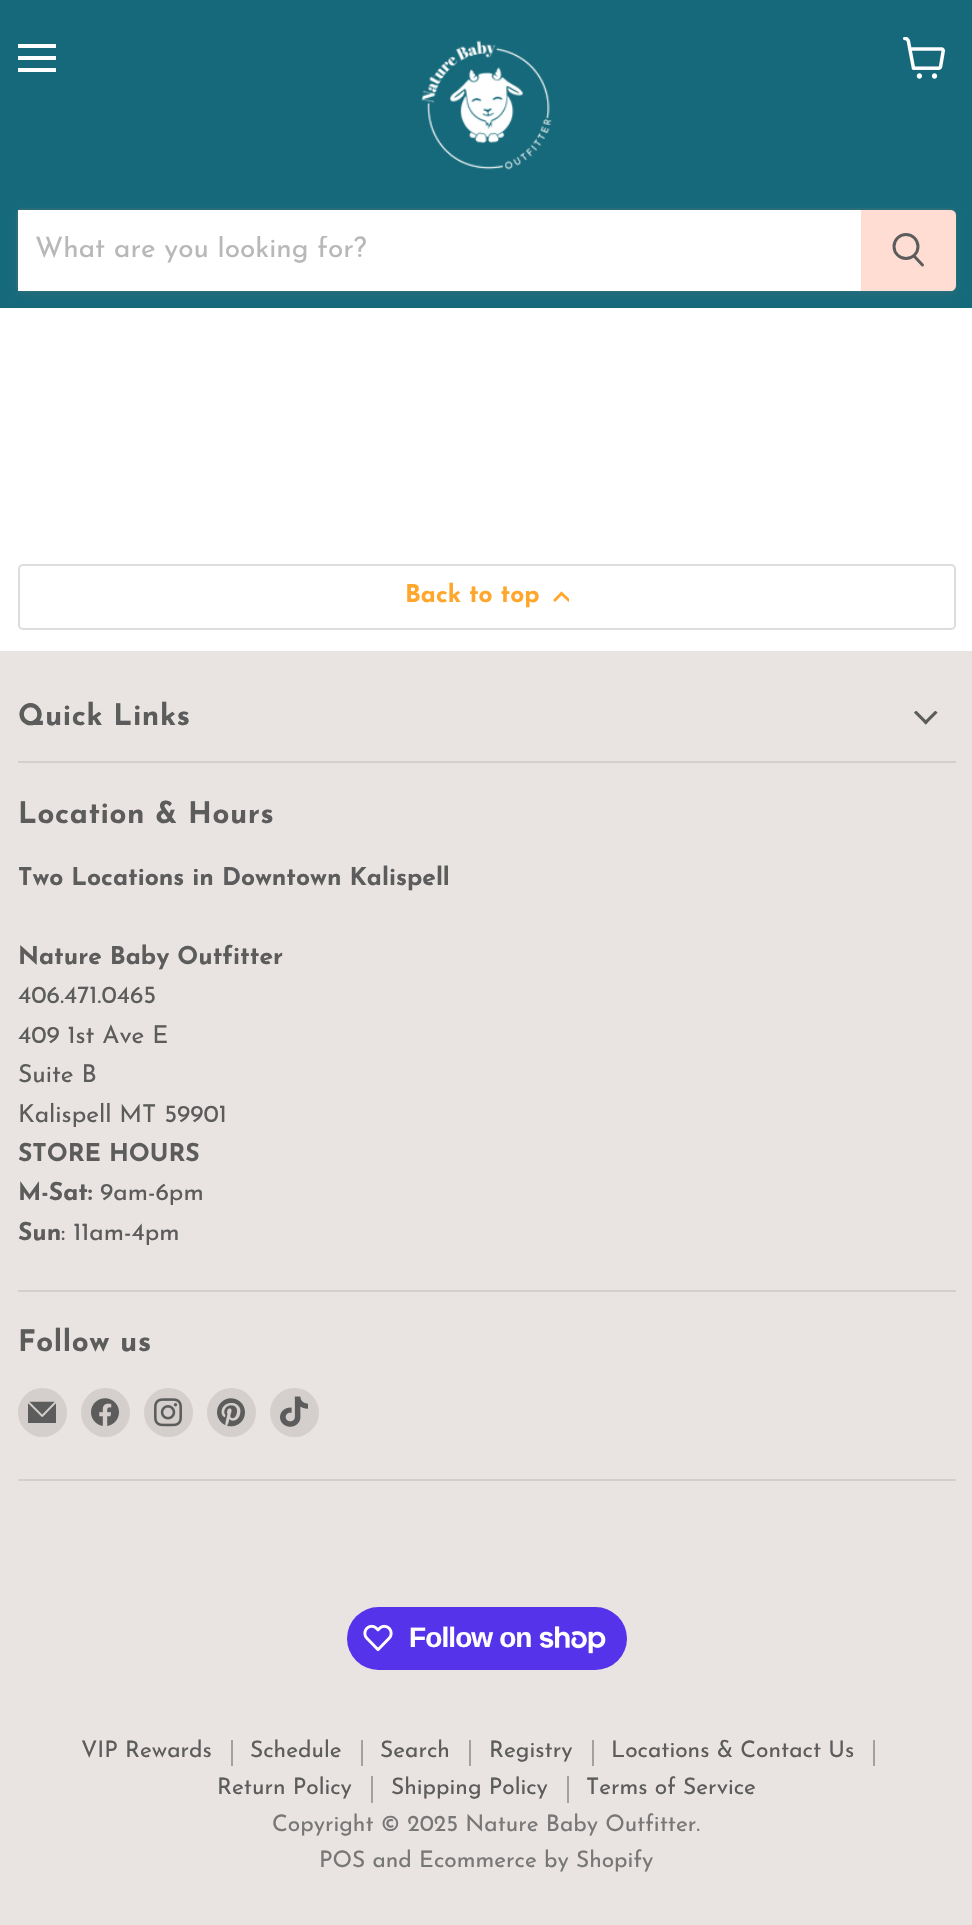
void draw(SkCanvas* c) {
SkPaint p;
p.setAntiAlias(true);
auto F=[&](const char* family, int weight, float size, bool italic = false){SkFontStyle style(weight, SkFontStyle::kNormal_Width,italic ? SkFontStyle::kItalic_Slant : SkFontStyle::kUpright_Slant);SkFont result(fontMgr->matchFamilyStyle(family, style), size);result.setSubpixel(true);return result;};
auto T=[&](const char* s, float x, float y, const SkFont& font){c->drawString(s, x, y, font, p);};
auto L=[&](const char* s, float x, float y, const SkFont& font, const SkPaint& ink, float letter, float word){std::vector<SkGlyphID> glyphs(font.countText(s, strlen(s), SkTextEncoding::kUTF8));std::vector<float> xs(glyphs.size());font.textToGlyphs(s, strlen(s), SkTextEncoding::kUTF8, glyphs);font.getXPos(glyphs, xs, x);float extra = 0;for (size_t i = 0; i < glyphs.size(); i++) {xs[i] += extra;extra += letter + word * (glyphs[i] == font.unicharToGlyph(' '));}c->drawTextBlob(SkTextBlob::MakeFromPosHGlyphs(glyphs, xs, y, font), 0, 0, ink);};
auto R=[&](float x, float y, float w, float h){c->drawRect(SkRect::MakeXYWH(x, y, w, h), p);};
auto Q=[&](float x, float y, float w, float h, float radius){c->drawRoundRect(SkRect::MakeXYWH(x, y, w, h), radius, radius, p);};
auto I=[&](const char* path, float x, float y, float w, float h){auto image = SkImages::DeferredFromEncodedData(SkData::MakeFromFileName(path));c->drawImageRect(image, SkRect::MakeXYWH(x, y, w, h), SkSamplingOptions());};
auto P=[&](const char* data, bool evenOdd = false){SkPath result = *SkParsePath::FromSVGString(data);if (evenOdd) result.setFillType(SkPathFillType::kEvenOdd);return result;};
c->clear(0xffffffff);
p.setColor(0xff16697a);
R(0,0,972,308);
p.setColor(0xffffffff);
R(18,44,38,4);
R(18,56,38,4);
R(18,68,38,4);
I("1.png",903,37,42,42);
I("2.png",421,40,131,130);
p.setColor(0x1c808080);
p.setMaskFilter(SkMaskFilter::MakeBlur(kNormal_SkBlurStyle, 2.5));
c->drawRoundRect(SkRect::MakeXYWH(16,212,941,84),7,7,p);
p.setMaskFilter(nullptr);
p.setStroke(true);
p.setStrokeWidth(2);
p.setColor(0xff2b6e7b);
c->drawRoundRect(SkRect::MakeXYWH(17,209,939,82),6,6,p);
p.setStroke(false);
p.setColor(0xffffffff);
R(18,210,843,81);
c->save();
c->clipRect(SkRect::MakeXYWH(35,236,809,28));
auto f1 = F("Josefin Sans",400,28);
p.setColor(0xffb8b8b8);
T("What are you looking for?",35,257,f1);
c->restore();
p.setColor(0xffffddd2);
c->drawPath(P("M862 211h89c2 0 4 2 4 4v71c0 2-2 4-4 4h-89z"),p);
p.setStroke(true);
c->drawPath(P("M862 211h89c2 0 4 2 4 4v71c0 2-2 4-4 4h-89z"),p);
p.setStrokeWidth(3);
p.setStrokeCap(SkPaint::kRound_Cap);
p.setColor(0xff5c5c5c);
c->drawPath(P("M922.5 265l-8-8.5"),p);
p.setStrokeCap(SkPaint::kButt_Cap);
c->drawCircle(906,246.5,12,p);
p.setStrokeWidth(2);
p.setColor(0xffdddddd);
c->drawRoundRect(SkRect::MakeXYWH(19,565,936,64),4,4,p);
auto f2 = F("Josefin Sans",700,24.5);
p.setStroke(false);
p.setColor(0xffffa62b);
T("Back to top",405,602,f2);
p.setStroke(true);
p.setStrokeWidth(2.7);
p.setStrokeCap(SkPaint::kSquare_Cap);
c->drawPath(P("M561.5 593.5l-6.5 6.5"),p);
c->save();
c->clipRect(SkRect::MakeXYWH(551,590,18,14));
c->drawPath(P("M561.5 593.5l7 6.5"),p);
c->restore();
p.setStroke(false);
p.setColor(0xffe9e3e1);
R(0,651,972,1274);
p.setColor(0xffd4cfcd);
R(18,761,938,2);
auto f3 = F("Josefin Sans",700,29.5);
p.setColor(0xff5c5c5c);
L("Quick Links",18,725,f3,p,.6,0);
I("3.png",914,711,24,14);
p.setColor(0xffd4cfcd);
R(18,1290,938,2);
p.setColor(0xff5c5c5c);
L("Location & Hours",18,823,f3,p,.6,0);
auto f4 = F("Josefin Sans",700,24.6);
T("Two Locations in Downtown Kalispell",18,885,f4);
T("Nature Baby Outfitter",18,964,f4);
auto f5 = F("Josefin Sans",400,24.6);
T("406.471.0465",18,1003,f5);
T("409 1st Ave E",18,1043,f5);
T("Suite B",18,1082,f5);
T("Kalispell MT 59901",18,1122,f5);
T("STORE HOURS",18,1161,f4);
T("M-Sat:",18,1200,f4);
T("9am-6pm",100,1200,f5);
T("Sun",18,1240,f4);
T(": 11am-4pm",61,1240,f5);
p.setColor(0xffd4cfcd);
R(18,1479,938,2);
p.setColor(0xff5c5c5c);
L("Follow us",18,1351,f3,p,.6,0);
p.setColor(0xffd4cfcd);
c->drawCircle(42.5,1412.5,24.5,p);
I("4.png",28,1401,28,22);
c->drawCircle(105.5,1412.5,24.5,p);
I("5.png",91,1398,28,28);
c->drawCircle(168.5,1412.5,24.5,p);
I("6.png",154,1398,28,29);
c->drawCircle(231.5,1412.5,24.5,p);
I("7.png",217,1398,28,29);
c->drawCircle(294.5,1412.5,24.5,p);
I("8.png",280,1396,28,31);
p.setColor(0xff5433eb);
Q(347,1607,280,63,31.5);
I("9.png",363,1624,30,28);
auto f6 = F("Liberation Sans",700,28);
p.setColor(0xffffffff);
L("Follow on",409,1647,f6,p,-.9,0);
I("10.png",539,1626,67,28);
p.setColor(0xffa3a09f);
R(231,1740,2,26);
auto f7 = F("Josefin Sans",400,22.75);
p.setColor(0xff5c5c5c);
T("VIP Rewards",81,1757,f7);
p.setColor(0xffa3a09f);
R(361,1740,2,26);
p.setColor(0xff5c5c5c);
T("Schedule",250,1757,f7);
p.setColor(0xffa3a09f);
R(469,1740,2,26);
p.setColor(0xff5c5c5c);
T("Search",380,1757,f7);
p.setColor(0xffa3a09f);
R(592,1740,2,26);
p.setColor(0xff5c5c5c);
T("Registry",489,1757,f7);
p.setColor(0xffa3a09f);
R(873,1740,2,26);
p.setColor(0xff5c5c5c);
T("Locations & Contact Us",611,1757,f7);
p.setColor(0xffa3a09f);
R(371,1776,2,27);
p.setColor(0xff5c5c5c);
T("Return Policy",217,1794,f7);
p.setColor(0xffa3a09f);
R(567,1776,2,27);
p.setColor(0xff5c5c5c);
T("Shipping Policy",391,1794,f7);
T("Terms of Service",586,1794,f7);
p.setColor(0xff787777);
T("Copyright © 2025 Nature Baby Outfitter.",272,1831,f7);
T("POS and Ecommerce by Shopify",319,1867,f7);
}
